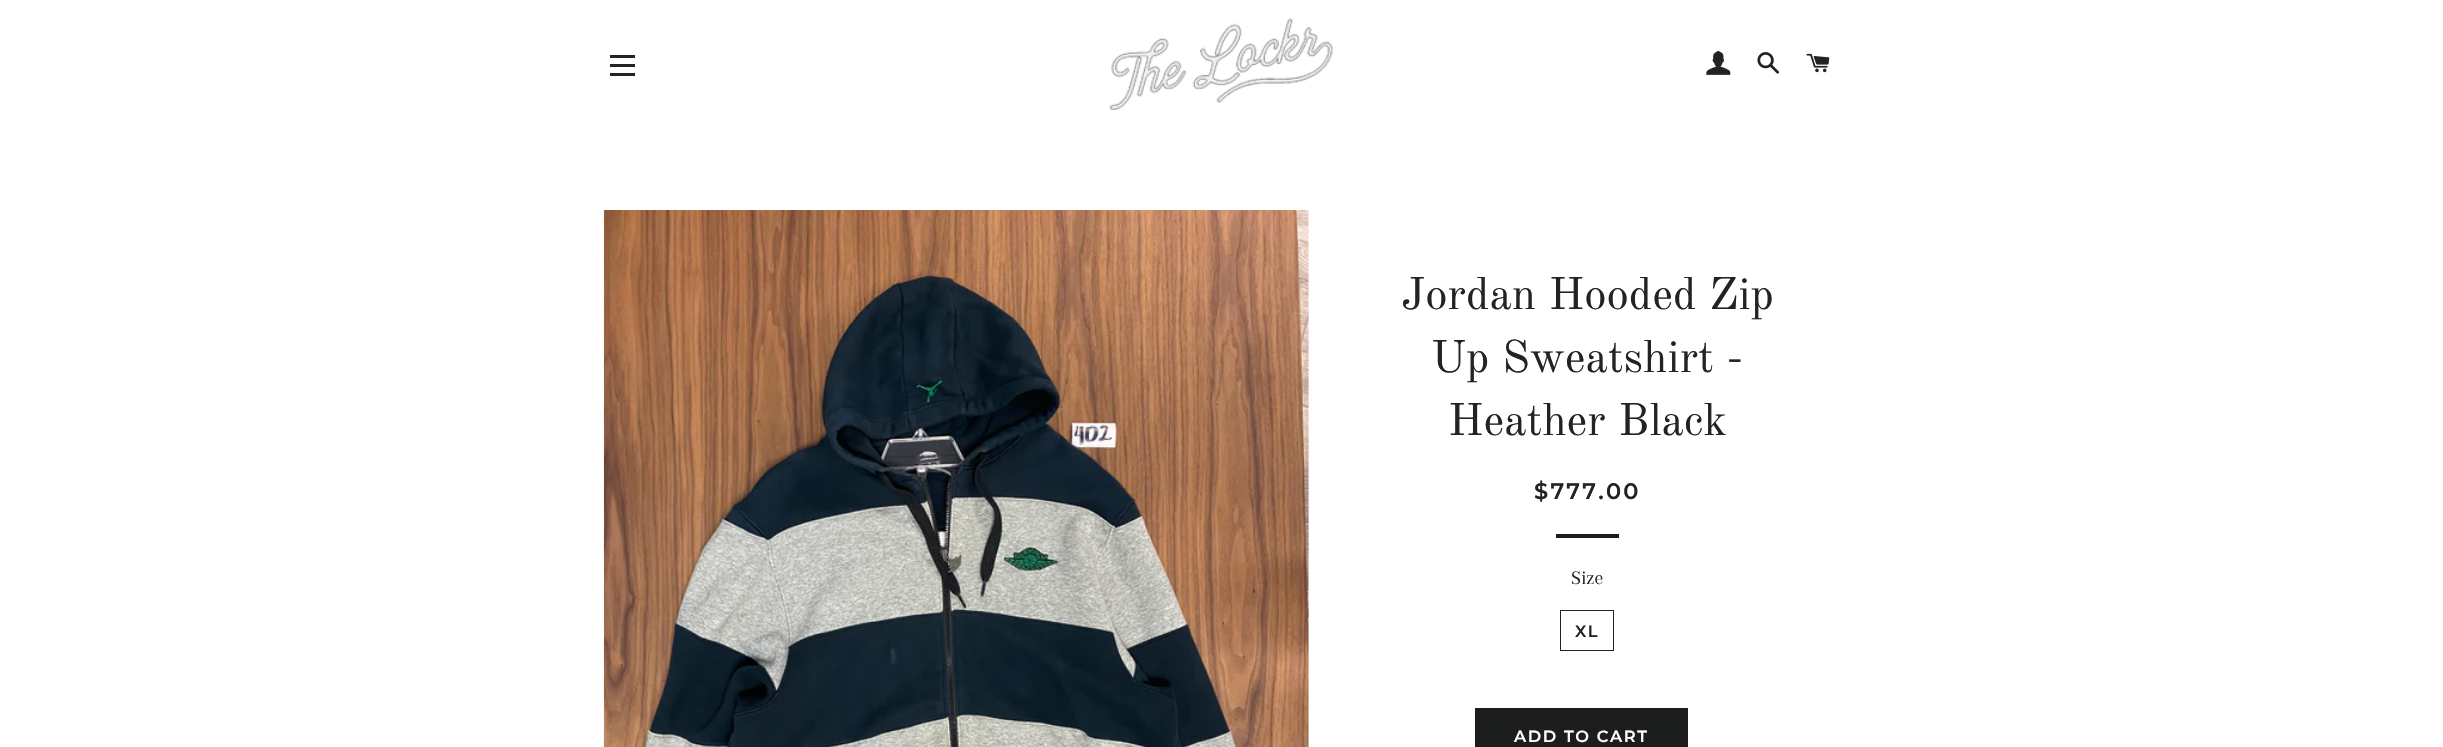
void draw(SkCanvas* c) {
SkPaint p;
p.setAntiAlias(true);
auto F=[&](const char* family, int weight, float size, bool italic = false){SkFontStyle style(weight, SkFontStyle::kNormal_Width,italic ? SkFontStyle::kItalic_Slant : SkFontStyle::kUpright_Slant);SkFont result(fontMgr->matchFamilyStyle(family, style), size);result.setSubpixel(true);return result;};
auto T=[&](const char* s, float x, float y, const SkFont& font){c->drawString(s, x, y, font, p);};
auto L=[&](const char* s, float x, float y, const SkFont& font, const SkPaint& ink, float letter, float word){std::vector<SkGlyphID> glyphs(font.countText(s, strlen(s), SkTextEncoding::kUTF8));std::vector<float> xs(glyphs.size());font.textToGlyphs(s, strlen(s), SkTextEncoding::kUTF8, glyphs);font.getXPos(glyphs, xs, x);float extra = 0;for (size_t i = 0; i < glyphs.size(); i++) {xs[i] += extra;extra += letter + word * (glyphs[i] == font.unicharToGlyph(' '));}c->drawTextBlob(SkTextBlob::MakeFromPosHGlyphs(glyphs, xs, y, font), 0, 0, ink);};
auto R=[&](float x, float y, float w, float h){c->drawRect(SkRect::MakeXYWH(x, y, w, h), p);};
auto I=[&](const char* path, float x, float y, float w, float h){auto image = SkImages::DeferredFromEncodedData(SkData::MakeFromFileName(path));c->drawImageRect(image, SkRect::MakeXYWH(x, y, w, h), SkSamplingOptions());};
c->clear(0xffffffff);
p.setColor(0xff222323);
R(610,55,25,3);
R(610,64,25,3);
R(610,73,25,3);
I("1.png",1109,18,224,92);
I("2.png",1706,50,25,25);
I("3.png",1757,52,23,22);
I("4.png",1806,53,24,20);
I("5.png",603,210,706,537);
auto f1 = F("Old Standard TT",400,45);
T("Jordan Hooded Zip",1401,309,f1);
T("Up Sweatshirt -",1431,372,f1);
T("Heather Black",1448,435,f1);
auto f2 = F("Montserrat",600,22.5);
L("$777.00",1534,499,f2,p,2.25,0);
p.setColor(0xff1c1d1d);
R(1556,534,63,4);
auto f3 = F("Arapey",400,20);
p.setColor(0xff222323);
T("Size",1571,584,f3);
p.setStroke(true);
p.setStrokeWidth(1);
c->drawRect(SkRect::MakeXYWH(1560.5,610.5,53,40),p);
auto f4 = F("Montserrat",600,16.25);
p.setStroke(false);
L("XL",1575,637,f4,p,1.6,0);
p.setColor(0xff1c1d1d);
R(1475,708,213,39);
p.setColor(0xffffffff);
L("ADD TO CART",1514,742,f4,p,1.6,0);
}
